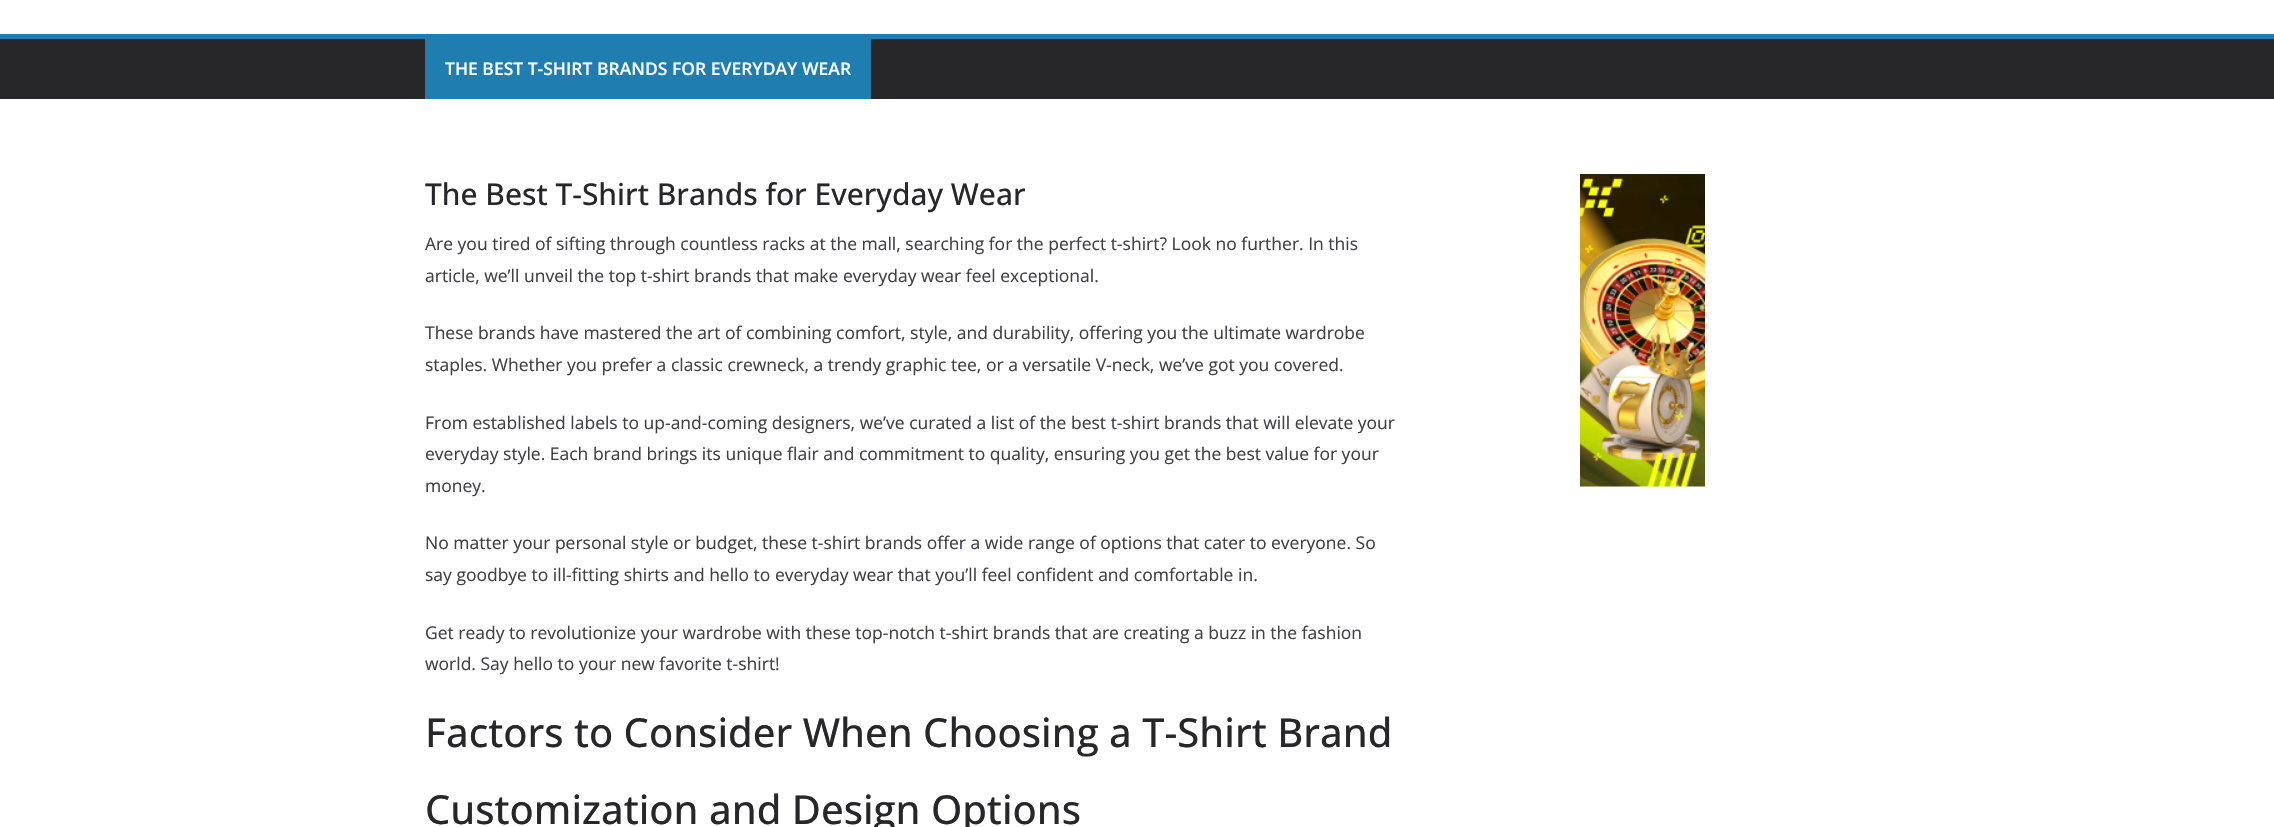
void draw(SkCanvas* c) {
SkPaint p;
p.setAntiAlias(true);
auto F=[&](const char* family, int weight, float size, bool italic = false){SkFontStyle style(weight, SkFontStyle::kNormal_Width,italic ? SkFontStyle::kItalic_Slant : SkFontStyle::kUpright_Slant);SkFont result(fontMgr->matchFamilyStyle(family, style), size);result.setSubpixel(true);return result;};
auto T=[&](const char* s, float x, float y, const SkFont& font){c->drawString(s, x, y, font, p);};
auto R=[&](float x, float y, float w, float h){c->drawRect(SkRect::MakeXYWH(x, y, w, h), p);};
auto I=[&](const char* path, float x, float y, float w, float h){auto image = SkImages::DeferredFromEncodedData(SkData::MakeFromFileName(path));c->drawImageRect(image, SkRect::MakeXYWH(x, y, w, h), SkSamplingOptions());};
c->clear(0xffffffff);
p.setColor(0xff27272a);
R(0,39,2274,60);
p.setColor(0xff207daf);
R(0,34,2274,5);
R(425,39,446,60);
auto f1 = F("Open Sans",600,17.5);
p.setColor(0xffffffff);
T("THE BEST T-SHIRT BRANDS FOR EVERYDAY WEAR",445,75,f1);
auto f2 = F("Open Sans",500,30);
p.setColor(0xff27272a);
T("The Best T-Shirt Brands for Everyday Wear",425,205,f2);
auto f3 = F("Open Sans",400,17.5);
p.setColor(0xff3f3f46);
T("Are you tired of sifting through countless racks at the mall, searching for the perfect t-shirt? Look no further. In this",425,250,f3);
T("article, we’ll unveil the top t-shirt brands that make everyday wear feel exceptional.",425,282,f3);
T("These brands have mastered the art of combining comfort, style, and durability, offering you the ultimate wardrobe",425,339,f3);
T("staples. Whether you prefer a classic crewneck, a trendy graphic tee, or a versatile V-neck, we’ve got you covered.",425,371,f3);
T("From established labels to up-and-coming designers, we’ve curated a list of the best t-shirt brands that will elevate your",425,429,f3);
T("everyday style. Each brand brings its unique flair and commitment to quality, ensuring you get the best value for your",425,460,f3);
T("money.",425,492,f3);
T("No matter your personal style or budget, these t-shirt brands offer a wide range of options that cater to everyone. So",425,549,f3);
T("say goodbye to ill-fitting shirts and hello to everyday wear that you’ll feel confident and comfortable in.",425,581,f3);
T("Get ready to revolutionize your wardrobe with these top-notch t-shirt brands that are creating a buzz in the fashion",425,639,f3);
T("world. Say hello to your new favorite t-shirt!",425,670,f3);
auto f4 = F("Open Sans",500,40);
p.setColor(0xff27272a);
T("Factors to Consider When Choosing a T-Shirt Brand",425,747,f4);
T("Customization and Design Options",425,824,f4);
I("1.png",1580,174,125,313);
}
